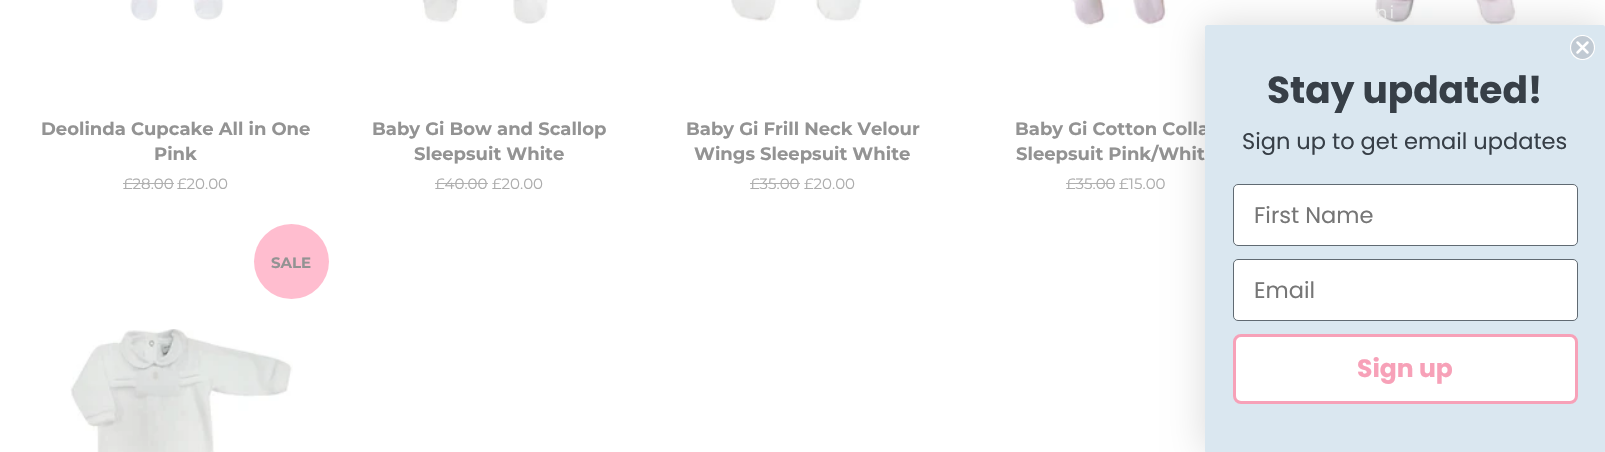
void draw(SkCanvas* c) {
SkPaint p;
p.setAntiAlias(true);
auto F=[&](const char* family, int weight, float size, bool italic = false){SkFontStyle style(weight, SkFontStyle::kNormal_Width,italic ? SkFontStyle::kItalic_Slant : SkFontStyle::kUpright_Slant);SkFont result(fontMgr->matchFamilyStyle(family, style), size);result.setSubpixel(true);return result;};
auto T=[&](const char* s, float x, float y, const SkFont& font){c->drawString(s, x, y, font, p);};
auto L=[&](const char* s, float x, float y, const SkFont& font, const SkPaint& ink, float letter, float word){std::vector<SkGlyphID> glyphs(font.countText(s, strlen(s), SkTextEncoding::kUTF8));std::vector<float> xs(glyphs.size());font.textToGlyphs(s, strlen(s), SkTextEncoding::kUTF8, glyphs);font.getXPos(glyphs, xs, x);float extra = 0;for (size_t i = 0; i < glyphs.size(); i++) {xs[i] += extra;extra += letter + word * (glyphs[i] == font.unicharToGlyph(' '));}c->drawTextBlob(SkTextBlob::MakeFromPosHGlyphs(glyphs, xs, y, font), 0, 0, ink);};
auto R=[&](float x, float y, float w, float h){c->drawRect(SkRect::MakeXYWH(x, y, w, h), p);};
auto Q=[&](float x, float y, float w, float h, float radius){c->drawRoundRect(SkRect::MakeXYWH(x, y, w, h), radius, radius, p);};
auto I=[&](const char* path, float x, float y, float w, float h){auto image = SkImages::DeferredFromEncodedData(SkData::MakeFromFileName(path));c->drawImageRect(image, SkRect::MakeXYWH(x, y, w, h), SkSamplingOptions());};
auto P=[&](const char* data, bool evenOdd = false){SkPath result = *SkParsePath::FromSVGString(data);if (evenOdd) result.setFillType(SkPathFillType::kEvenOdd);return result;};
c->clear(0xffffffff);
I("1.png",1375,0,142,25);
auto f1 = F("Montserrat",400,17);
p.setColor(0xfff7f7f7);
L("ni",1376,18,f1,p,2,0);
I("2.png",130,0,94,21);
auto f2 = F("Montserrat",700,18);
p.setColor(0xff939393);
T("Deolinda Cupcake All in One",41,135,f2);
T("Pink",154,160,f2);
auto f3 = F("Montserrat",400,15);
p.setColor(0xffacacac);
T("£28.00",123,189,f3);
p.setColor(0xffb0b0b0);
R(123,183,51,1);
p.setColor(0xffacacac);
T("£20.00",177,189,f3);
I("3.png",422,0,126,24);
p.setColor(0xff939393);
T("Baby Gi Bow and Scallop",372,135,f2);
T("Sleepsuit White",414,160,f2);
p.setColor(0xffacacac);
T("£40.00",435,189,f3);
p.setColor(0xffb0b0b0);
R(435,183,53,1);
p.setColor(0xffacacac);
T("£20.00",492,189,f3);
I("4.png",731,0,131,22);
p.setColor(0xff939393);
T("Baby Gi Frill Neck Velour",686,135,f2);
T("Wings Sleepsuit White",694,160,f2);
p.setColor(0xffacacac);
T("£35.00",750,189,f3);
p.setColor(0xffb0b0b0);
R(750,183,50,1);
p.setColor(0xffacacac);
T("£20.00",804,189,f3);
I("5.png",1071,0,97,28);
p.setColor(0xff939393);
T("Baby Gi Cotton Colla",1015,135,f2);
T("Sleepsuit Pink/Whit",1016,160,f2);
p.setColor(0xffacacac);
T("£35.00",1066,189,f3);
p.setColor(0xffb0b0b0);
R(1066,183,49,1);
p.setColor(0xffacacac);
T("£15.00",1119,189,f3);
p.setColor(0xffffbdcf);
c->drawCircle(291.5,261.5,37.5,p);
auto f4 = F("Montserrat",700,15);
p.setColor(0xff939393);
T("SALE",271,268,f4);
I("6.png",70,329,223,123);
p.setColor(0x26000000);
p.setMaskFilter(SkMaskFilter::MakeBlur(kNormal_SkBlurStyle, 19));
c->drawRoundRect(SkRect::MakeXYWH(1205,25,400,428),2.5,2.5,p);
p.setMaskFilter(nullptr);
p.setColor(0xffdae7f0);
Q(1205,25,400,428,2.5);
p.setColor(0xffc1cad3);
c->drawCircle(1582.5,47.5,12,p);
c->save();
c->clipRect(SkRect::MakeXYWH(1570,35,25,25));
p.setStroke(true);
p.setStrokeWidth(1.2);
p.setColor(0xffffffff);
c->drawCircle(1582.5,47.5,12,p);
c->restore();
p.setStrokeWidth(2.5);
p.setStrokeCap(SkPaint::kRound_Cap);
p.setStrokeJoin(SkPaint::kRound_Join);
c->drawPath(P("M1577.5 42.5l10 10m-10 0l10-10z"),p);
auto f5 = F("Poppins",700,37.5);
p.setStroke(false);
p.setColor(0xff373f47);
T("Stay updated!",1267,103,f5);
auto f6 = F("Poppins",400,22.5);
T("Sign up to get email updates",1242,149,f6);
p.setColor(0xffffffff);
c->drawRoundRect(SkRect::MakeXYWH(1233.5,184.5,344,61),4.5,4.5,p);
p.setStroke(true);
p.setStrokeWidth(1);
p.setStrokeCap(SkPaint::kButt_Cap);
p.setStrokeJoin(SkPaint::kMiter_Join);
p.setColor(0xff606a72);
c->drawRoundRect(SkRect::MakeXYWH(1233.5,184.5,344,61),4.5,4.5,p);
p.setStroke(false);
p.setColor(0xff767676);
T("First Name",1254,223,f6);
p.setColor(0xffffffff);
c->drawRoundRect(SkRect::MakeXYWH(1233.5,259.5,344,61),4.5,4.5,p);
p.setStroke(true);
p.setColor(0xff606a72);
c->drawRoundRect(SkRect::MakeXYWH(1233.5,259.5,344,61),4.5,4.5,p);
p.setStroke(false);
p.setColor(0xff767676);
T("Email",1254,298,f6);
p.setColor(0xffffffff);
c->drawRoundRect(SkRect::MakeXYWH(1234.5,335.5,342,67),6.5,6.5,p);
p.setStroke(true);
p.setStrokeWidth(3);
p.setColor(0xfff7a1b8);
c->drawRoundRect(SkRect::MakeXYWH(1234.5,335.5,342,67),6.5,6.5,p);
auto f7 = F("Poppins",700,25);
p.setStroke(false);
T("Sign up",1357,377,f7);
}
